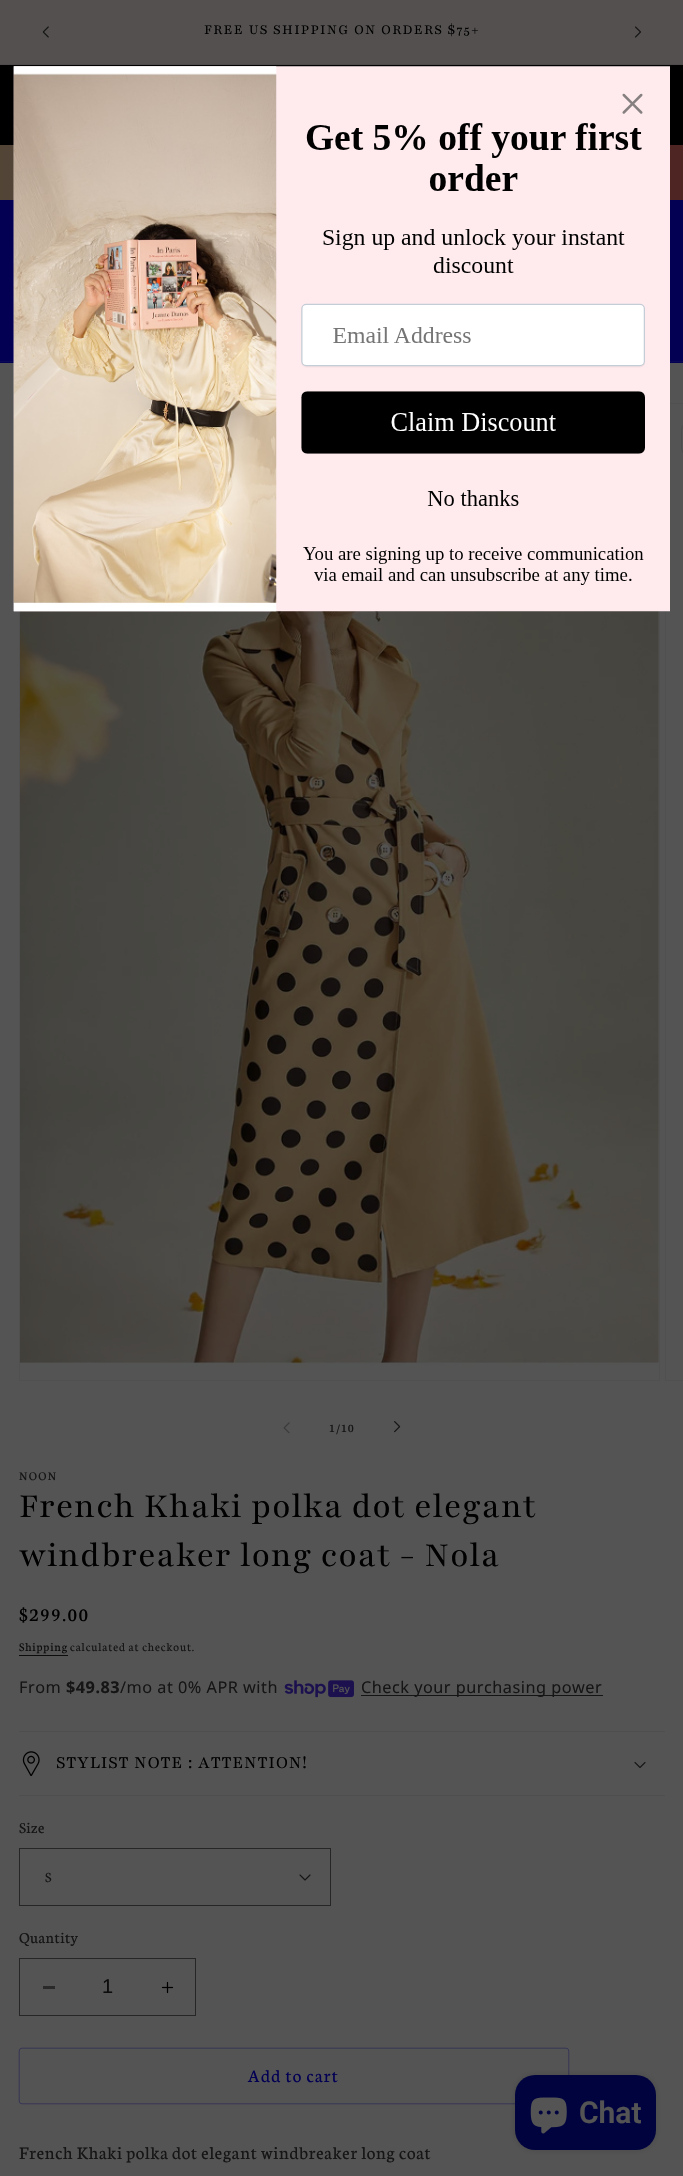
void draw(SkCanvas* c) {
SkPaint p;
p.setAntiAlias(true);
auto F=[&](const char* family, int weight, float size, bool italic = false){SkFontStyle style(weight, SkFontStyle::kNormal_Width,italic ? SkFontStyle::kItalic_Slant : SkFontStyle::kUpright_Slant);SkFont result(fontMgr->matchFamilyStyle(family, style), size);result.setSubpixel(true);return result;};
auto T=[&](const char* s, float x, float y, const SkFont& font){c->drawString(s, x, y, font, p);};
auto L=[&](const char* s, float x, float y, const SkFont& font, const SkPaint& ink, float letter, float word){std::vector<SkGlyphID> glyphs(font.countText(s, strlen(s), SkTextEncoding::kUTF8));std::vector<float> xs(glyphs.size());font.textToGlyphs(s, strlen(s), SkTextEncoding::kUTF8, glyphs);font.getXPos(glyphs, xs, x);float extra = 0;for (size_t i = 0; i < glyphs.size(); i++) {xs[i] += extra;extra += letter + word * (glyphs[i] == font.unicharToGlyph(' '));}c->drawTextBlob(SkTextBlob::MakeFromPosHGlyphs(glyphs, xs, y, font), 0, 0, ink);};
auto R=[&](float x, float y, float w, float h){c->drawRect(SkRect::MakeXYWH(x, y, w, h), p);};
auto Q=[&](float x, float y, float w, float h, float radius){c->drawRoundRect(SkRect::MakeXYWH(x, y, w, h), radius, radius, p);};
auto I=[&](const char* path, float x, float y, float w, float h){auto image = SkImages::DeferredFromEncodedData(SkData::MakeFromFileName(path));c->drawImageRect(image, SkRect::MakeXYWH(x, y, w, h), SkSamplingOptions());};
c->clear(0xffffffff);
p.setColor(0xfffff3f3);
R(0,0,683,64);
p.setColor(0xffebe0e0);
R(0,64,683,1);
I("2.png",42,26,7,12);
auto f1 = F("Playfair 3",400,15);
p.setColor(0xff000000);
L("FREE US SHIPPING ON ORDERS $75+",204,34,f1,p,1.25,0);
I("3.png",635,26,6,12);
R(0,65,683,80);
{
const SkColor colors[] = {0xfff06e69,0xfff9d0a3};
const float stops[] = {0,1};
const SkPoint ends[] = {{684,1088}, {0,1088}};
p.setShader(SkGradientShader::MakeLinear(ends, colors, stops, 2, SkTileMode::kClamp));
p.setAlpha(255);
}
R(0,145,683,55);
p.setShader(nullptr);
p.setColor(0xff0800ff);
R(0,200,683,163);
p.setColor(0xff1c13fe);
R(0,361,683,1);
p.setStroke(true);
p.setStrokeWidth(1);
p.setColor(0xfff2f2f2);
c->drawRect(SkRect::MakeXYWH(19.5,403.5,640,977),p);
I("4.png",20,611,639,757);
c->drawRect(SkRect::MakeXYWH(665.5,403.5,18,977),p);
p.setColor(0xffe6e6e6);
c->drawRoundRect(SkRect::MakeXYWH(681.5,419.5,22,39),19.5,19.5,p);
I("5.png",283,1422,7,12);
auto f2 = F("Neuton",400,12.5);
p.setStroke(false);
p.setColor(0xff404040);
L("1/10",329,1432,f2,p,.9,0);
I("6.png",394,1421,7,12);
L("NOON",19,1480,f2,p,1.5,0);
auto f3 = F("Playfair",400,37.5);
p.setColor(0xff000000);
L("French Khaki polka dot elegant",19,1517,f3,p,.75,0);
L("windbreaker long coat - Nola",19,1566,f3,p,.75,0);
auto f4 = F("Neuton",400,20);
L("$299.00",19,1621,f4,p,1.5,0);
p.setColor(0xff262626);
L("Shipping",19,1651,f2,p,.9,0);
R(19,1655,49,1);
p.setColor(0xff404040);
L("calculated at checkout.",70,1651,f2,p,.9,0);
auto f5 = F("Noto Sans",400,16.25);
L("From",19,1693,f5,p,.5,0);
auto f6 = F("Noto Sans",700,16.25);
L("$49.83",66,1693,f6,p,.5,0);
L("/mo at 0% APR with",120,1693,f5,p,.5,0);
I("7.png",284,1680,70,18);
R(361,1695,242,1);
L("Check your purchasing power",361,1693,f5,p,.5,0);
p.setColor(0xffebebeb);
R(19,1731,646,1);
R(19,1795,646,1);
I("8.png",22,1751,18,25);
auto f7 = F("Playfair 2",400,18.75);
p.setColor(0xff000000);
L("STYLIST NOTE : ATTENTION!",56,1768,f7,p,.75,0);
I("9.png",634,1762,12,6);
auto f8 = F("Neuton",400,16.25);
p.setColor(0xff404040);
L("Size",19,1833,f8,p,.5,0);
I("10.png",299,1874,12,7);
p.setStroke(true);
p.setColor(0xff737373);
c->drawRect(SkRect::MakeXYWH(19.5,1848.5,311,57),p);
auto f9 = F("Neuton",400,15);
p.setStroke(false);
p.setColor(0xff404040);
L("S",45,1882,f9,p,.5,0);
L("Quantity",19,1943,f8,p,.5,0);
p.setColor(0xff808080);
R(43,1986,12,3);
I("11.png",161,1981,13,13);
p.setStroke(true);
p.setColor(0xff737373);
c->drawRect(SkRect::MakeXYWH(19.5,1958.5,176,57),p);
auto f10 = F("Liberation Sans",400,20);
p.setStroke(false);
p.setColor(0xff262626);
T("1",102,1993,f10);
p.setStroke(true);
p.setStrokeWidth(.4);
p.setColor(0xff140dff);
c->drawRoundRect(SkRect::MakeXYWH(19.2,2048.2,549.6,55.6),2.8,2.8,p);
auto f11 = F("Neuton",400,18.75);
p.setStroke(false);
p.setColor(0xff0800ff);
L("Add to cart",248,2082,f11,p,1.25,0);
p.setColor(0xff404040);
L("French Khaki polka dot elegant windbreaker long coat",19,2159,f11,p,.75,0);
p.setColor(0x26000000);
p.setMaskFilter(SkMaskFilter::MakeBlur(kNormal_SkBlurStyle, 3));
c->drawRoundRect(SkRect::MakeXYWH(515,2075,141,75),20,20,p);
p.setMaskFilter(nullptr);
p.setColor(0xff0008bc);
Q(515,2075,141,75,20);
I("12.png",530,2097,37,37);
auto f12 = F("Roboto",600,30);
p.setColor(0xffffffff);
T("Chat",579,2123,f12);
I("1.png",0,0,683,2176);
}
